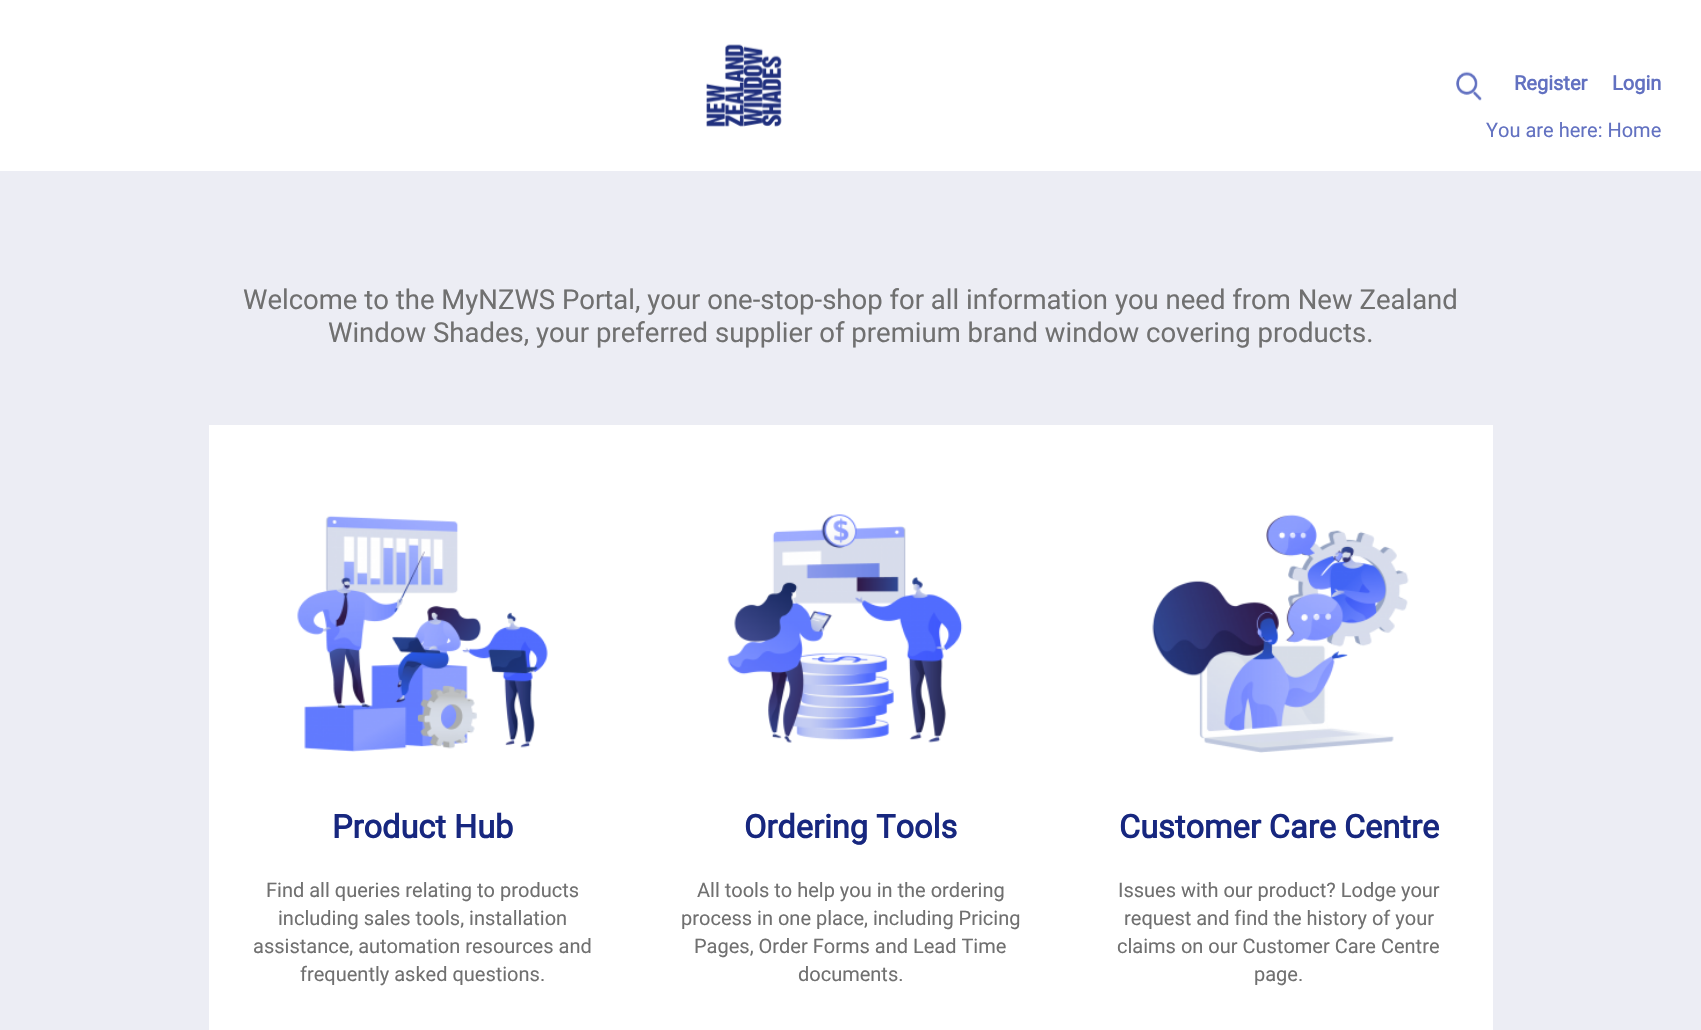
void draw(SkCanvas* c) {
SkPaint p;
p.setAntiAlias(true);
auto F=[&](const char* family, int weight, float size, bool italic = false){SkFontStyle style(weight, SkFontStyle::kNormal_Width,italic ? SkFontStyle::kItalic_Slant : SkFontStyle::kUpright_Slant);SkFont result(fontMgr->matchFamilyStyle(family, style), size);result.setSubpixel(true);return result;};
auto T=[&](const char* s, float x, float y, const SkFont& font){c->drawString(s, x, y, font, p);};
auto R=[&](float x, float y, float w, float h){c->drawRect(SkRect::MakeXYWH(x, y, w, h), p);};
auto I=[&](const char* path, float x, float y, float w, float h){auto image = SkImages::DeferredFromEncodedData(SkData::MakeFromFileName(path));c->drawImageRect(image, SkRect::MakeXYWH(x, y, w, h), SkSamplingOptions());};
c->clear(0xffecedf4);
p.setColor(0xffffffff);
R(0,0,1701,171);
I("1.png",706,44,76,83);
I("2.png",1456,71,26,30);
auto f1 = F("Roboto",700,20);
p.setColor(0xff6271c1);
T("Register",1514,90,f1);
T("Login",1612,90,f1);
auto f2 = F("Roboto",400,20);
T("You are here: Home",1486,137,f2);
auto f3 = F("Roboto",400,27.5);
p.setColor(0xff707070);
T("Welcome to the MyNZWS Portal, your one-stop-shop for all information you need from New Zealand",243,309,f3);
T("Window Shades, your preferred supplier of premium brand window covering products.",328,342,f3);
p.setColor(0xffffffff);
R(209,425,1284,605);
I("3.png",297,515,251,237);
auto f4 = F("Roboto",700,32.5);
p.setColor(0xff17277f);
T("Product Hub",332,838,f4);
p.setColor(0xff707070);
T("Find all queries relating to products",266,897,f2);
T("including sales tools, installation",278,925,f2);
T("assistance, automation resources and",253,953,f2);
T("frequently asked questions.",300,981,f2);
I("4.png",727,514,236,229);
p.setColor(0xff17277f);
T("Ordering Tools",744,838,f4);
p.setColor(0xff707070);
T("All tools to help you in the ordering",697,897,f2);
T("process in one place, including Pricing",681,925,f2);
T("Pages, Order Forms and Lead Time",694,953,f2);
T("documents.",798,981,f2);
I("5.png",1152,514,257,239);
p.setColor(0xff17277f);
T("Customer Care Centre",1119,838,f4);
p.setColor(0xff707070);
T("Issues with our product? Lodge your",1118,897,f2);
T("request and find the history of your",1124,925,f2);
T("claims on our Customer Care Centre",1117,953,f2);
T("page.",1254,981,f2);
}
